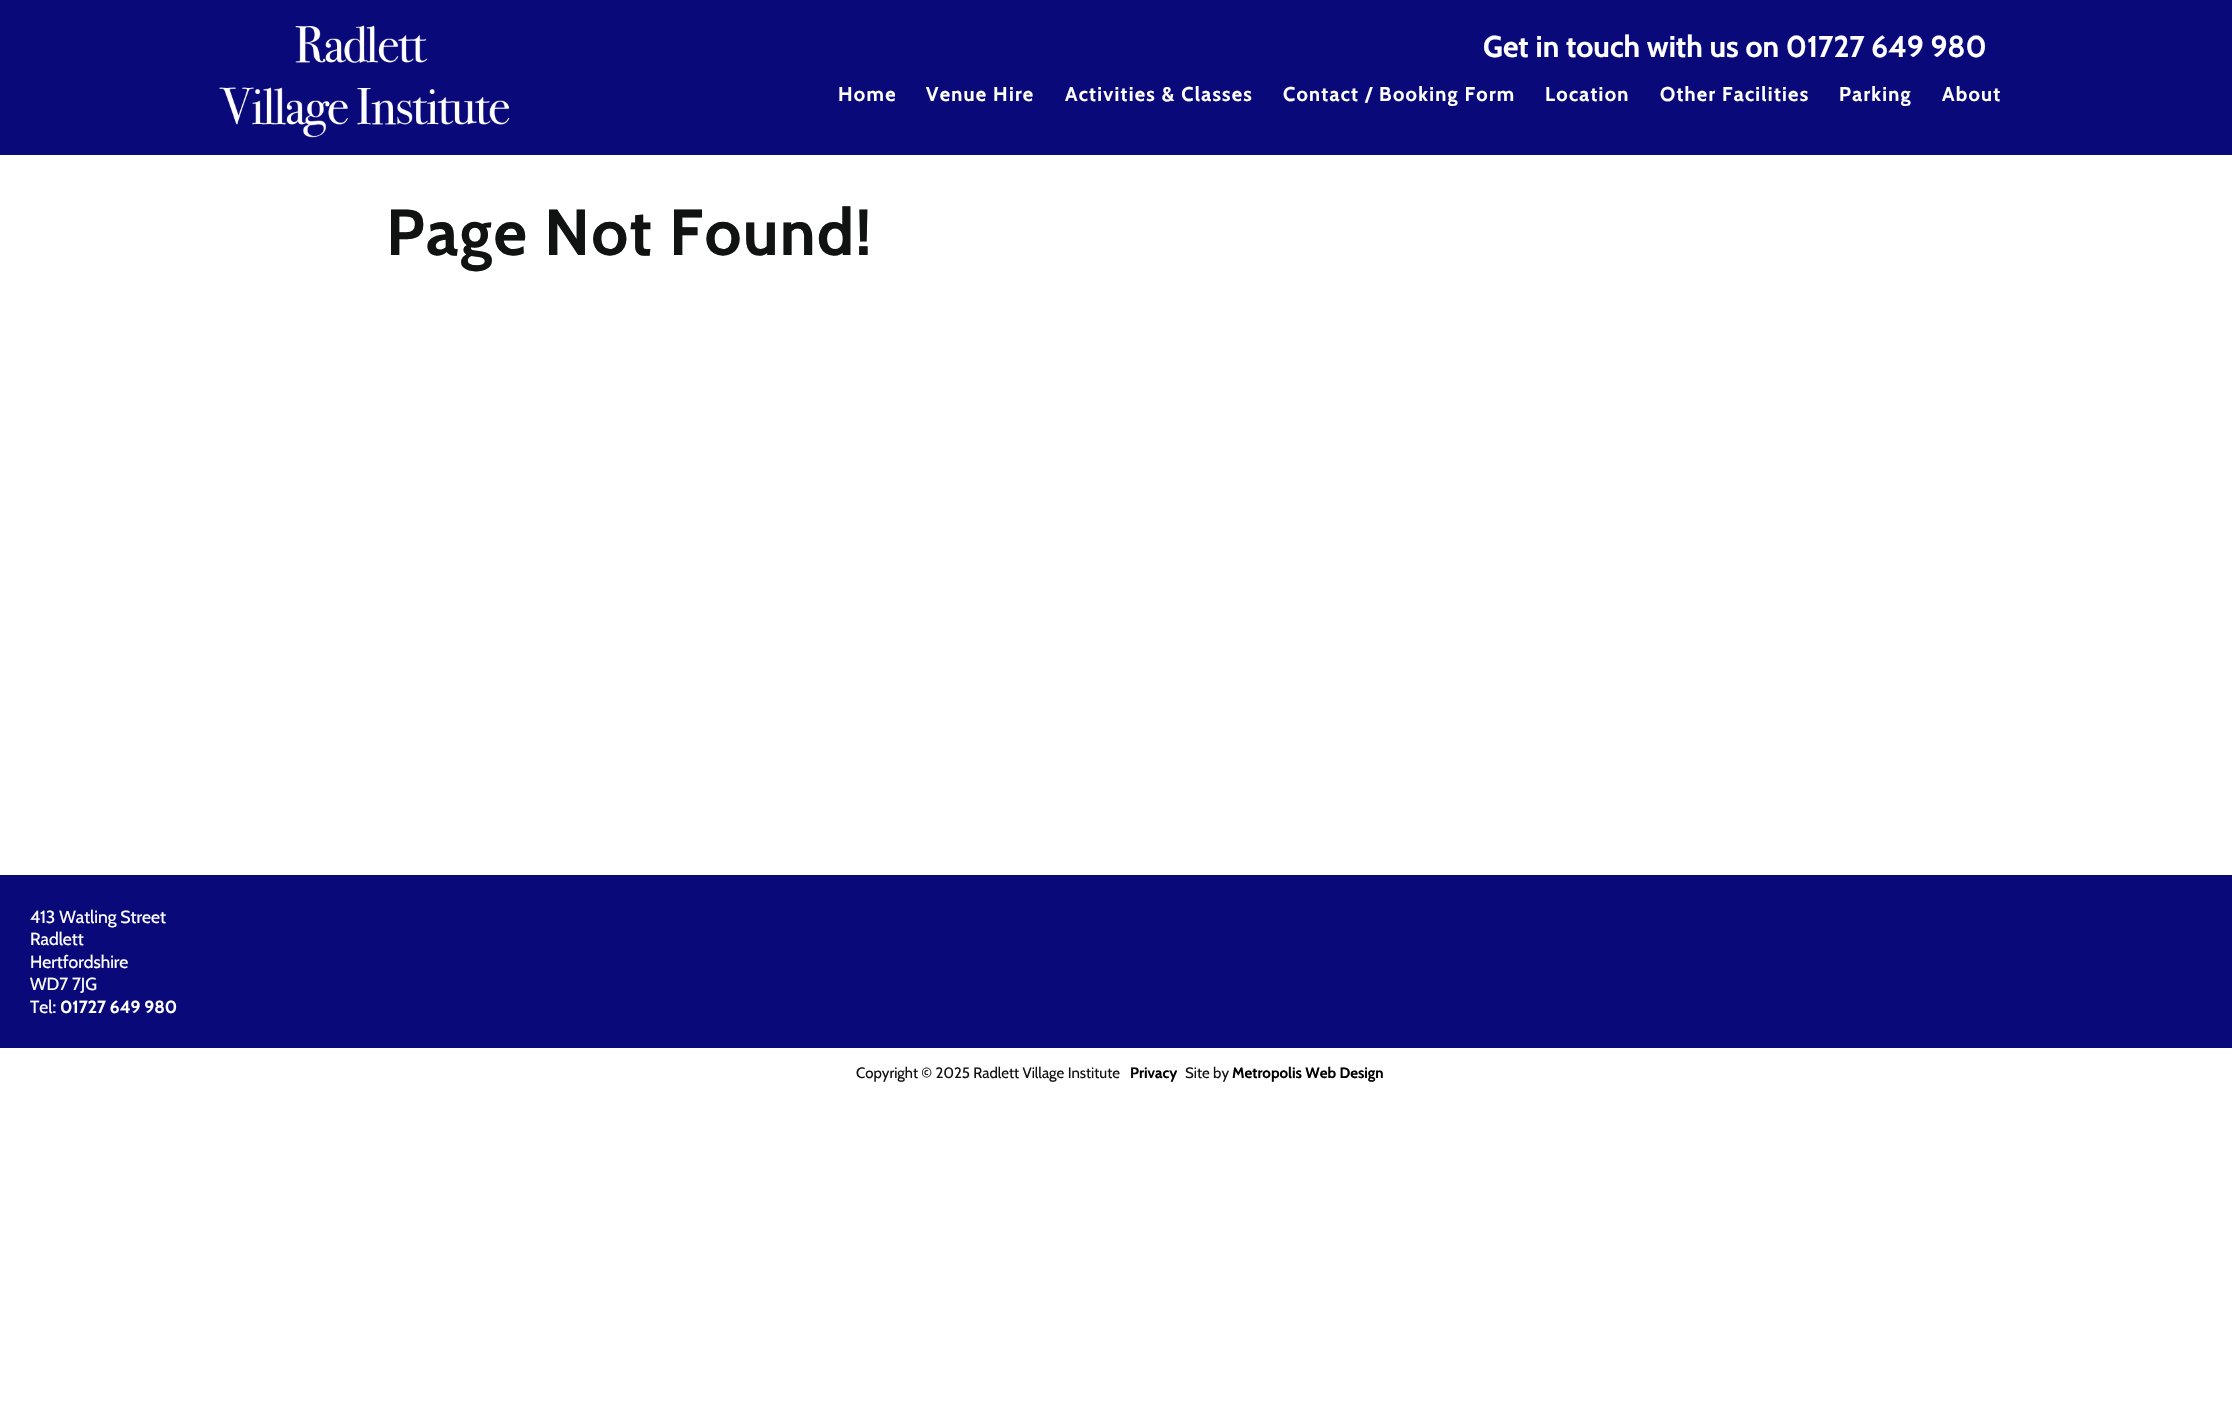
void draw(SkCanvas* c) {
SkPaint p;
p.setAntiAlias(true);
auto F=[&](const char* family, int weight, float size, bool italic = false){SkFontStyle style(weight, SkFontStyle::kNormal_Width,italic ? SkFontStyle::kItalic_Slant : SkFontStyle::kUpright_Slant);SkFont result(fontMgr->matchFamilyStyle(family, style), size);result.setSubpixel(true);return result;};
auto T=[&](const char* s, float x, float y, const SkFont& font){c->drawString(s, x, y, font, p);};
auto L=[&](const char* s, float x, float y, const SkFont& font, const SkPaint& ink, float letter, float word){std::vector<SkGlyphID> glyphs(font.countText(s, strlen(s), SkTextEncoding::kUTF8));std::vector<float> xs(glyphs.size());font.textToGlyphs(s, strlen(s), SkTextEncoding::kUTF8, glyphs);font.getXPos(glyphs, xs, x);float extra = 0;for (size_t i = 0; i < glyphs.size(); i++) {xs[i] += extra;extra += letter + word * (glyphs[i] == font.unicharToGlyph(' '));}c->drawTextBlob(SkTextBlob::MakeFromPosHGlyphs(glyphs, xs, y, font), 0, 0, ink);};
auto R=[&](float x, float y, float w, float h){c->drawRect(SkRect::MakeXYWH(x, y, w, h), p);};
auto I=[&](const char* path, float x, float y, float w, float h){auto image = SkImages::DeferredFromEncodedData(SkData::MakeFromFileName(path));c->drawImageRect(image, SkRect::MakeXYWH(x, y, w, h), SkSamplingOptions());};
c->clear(0xffffffff);
p.setColor(0xff090979);
R(0,0,2232,155);
I("1.png",219,25,291,113);
auto f1 = F("Cabin",700,30);
p.setColor(0xffffffff);
T("Get in touch with us on 01727 649 980",1483,57,f1);
auto f2 = F("Cabin",700,20);
L("Home",838,101,f2,p,1.25,0);
L("Venue Hire",926,101,f2,p,1.25,0);
L("Activities & Classes",1065,101,f2,p,1.25,0);
L("Contact / Booking Form",1283,101,f2,p,1.25,0);
L("Location",1545,101,f2,p,1.25,0);
L("Other Facilities",1660,101,f2,p,1.25,0);
L("Parking",1839,101,f2,p,1.25,0);
L("About",1942,101,f2,p,1.25,0);
auto f3 = F("Cabin",700,65);
p.setColor(0xff111212);
L("Page Not Found!",386,255,f3,p,1.25,0);
p.setColor(0xff090979);
R(0,875,2232,173);
auto f4 = F("Cabin",400,17.5);
p.setColor(0xffffffff);
T("413 Watling Street",30,923,f4);
T("Radlett",30,945,f4);
T("Hertfordshire",30,968,f4);
T("WD7 7JG",30,990,f4);
T("Tel:",30,1013,f4);
auto f5 = F("Cabin",700,17.5);
T("01727 649 980",60,1013,f5);
auto f6 = F("Cabin",400,15);
p.setColor(0xff111212);
T("Copyright © 2025 Radlett Village Institute",856,1078,f6);
auto f7 = F("Cabin",700,15);
p.setColor(0xff000000);
T("Privacy",1130,1078,f7);
p.setColor(0xff111212);
T("Site by",1185,1078,f6);
p.setColor(0xff000000);
T("Metropolis Web Design",1232,1078,f7);
}
